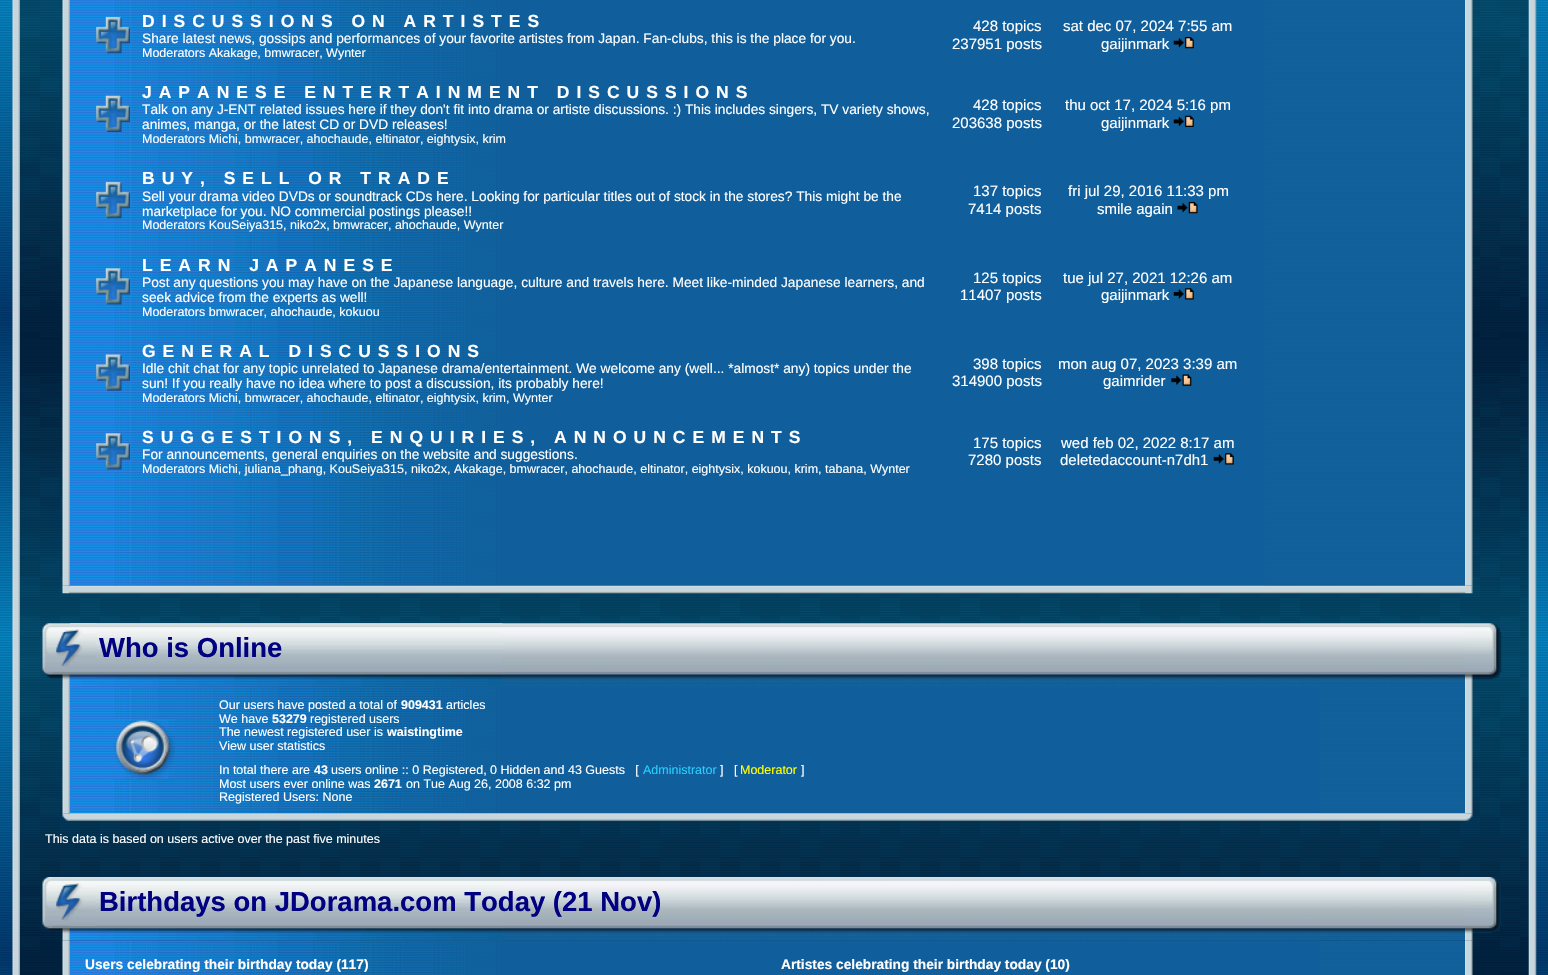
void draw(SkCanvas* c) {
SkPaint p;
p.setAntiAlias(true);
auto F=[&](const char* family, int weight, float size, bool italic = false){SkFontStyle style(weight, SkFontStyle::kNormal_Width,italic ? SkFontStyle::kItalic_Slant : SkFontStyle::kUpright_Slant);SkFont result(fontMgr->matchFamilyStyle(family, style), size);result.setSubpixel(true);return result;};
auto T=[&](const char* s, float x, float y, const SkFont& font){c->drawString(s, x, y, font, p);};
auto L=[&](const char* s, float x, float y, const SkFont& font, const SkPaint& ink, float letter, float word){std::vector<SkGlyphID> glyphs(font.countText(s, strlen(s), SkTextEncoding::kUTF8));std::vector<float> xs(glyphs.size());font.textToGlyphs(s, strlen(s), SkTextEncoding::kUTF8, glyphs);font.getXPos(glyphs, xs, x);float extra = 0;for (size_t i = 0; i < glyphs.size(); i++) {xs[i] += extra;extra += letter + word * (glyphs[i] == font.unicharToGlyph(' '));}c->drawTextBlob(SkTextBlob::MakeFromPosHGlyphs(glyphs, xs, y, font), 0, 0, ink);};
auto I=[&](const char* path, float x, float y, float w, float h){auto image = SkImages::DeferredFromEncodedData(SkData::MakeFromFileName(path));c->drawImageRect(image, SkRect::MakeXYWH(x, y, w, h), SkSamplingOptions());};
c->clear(0xffffffff);
I("1.png",0,0,1548,975);
I("2.png",12,0,8,975);
I("3.png",20,0,1509,975);
I("4.png",62,0,8,586);
I("5.png",70,0,1395,586);
I("6.png",70,0,1195,586);
I("7.png",96,16,34,38);
auto f1 = F("Liberation Sans",700,17.5);
p.setColor(0xffffffff);
L("DISCUSSIONS ON ARTISTES",142,27,f1,p,7,0);
auto f2 = F("Liberation Sans",400,13.75);
T("Share latest news, gossips and performances of your favorite artistes from Japan. Fan-clubs, this is the place for you.",142,43,f2);
auto f3 = F("Liberation Sans",400,12.5);
T("Moderators Akakage, bmwracer, Wynter",142,57,f3);
auto f4 = F("Liberation Sans",400,15);
T("428 topics",973,31,f4);
T("237951 posts",952,49,f4);
T("sat dec 07, 2024 7:55 am",1063,31,f4);
T("gaijinmark",1101,49,f4);
I("8.png",1173,37,21,12);
I("9.png",96,95,34,37);
L("JAPANESE ENTERTAINMENT DISCUSSIONS",142,98,f1,p,7,0);
T("Talk on any J-ENT related issues here if they don't fit into drama or artiste discussions. :) This includes singers, TV variety shows,",142,114,f2);
T("animes, manga, or the latest CD or DVD releases!",142,129,f2);
T("Moderators Michi, bmwracer, ahochaude, eltinator, eightysix, krim",142,143,f3);
T("428 topics",973,110,f4);
T("203638 posts",952,128,f4);
T("thu oct 17, 2024 5:16 pm",1065,110,f4);
T("gaijinmark",1101,128,f4);
I("10.png",1173,115,21,12);
I("11.png",96,181,34,38);
L("BUY, SELL OR TRADE",142,184,f1,p,7,0);
T("Sell your drama video DVDs or soundtrack CDs here. Looking for particular titles out of stock in the stores? This might be the",142,201,f2);
T("marketplace for you. NO commercial postings please!!",142,216,f2);
T("Moderators KouSeiya315, niko2x, bmwracer, ahochaude, Wynter",142,229,f3);
T("137 topics",973,196,f4);
T("7414 posts",968,214,f4);
T("fri jul 29, 2016 11:33 pm",1068,196,f4);
T("smile again",1097,214,f4);
I("12.png",1177,202,21,12);
I("13.png",96,268,34,37);
L("LEARN JAPANESE",142,271,f1,p,7,0);
T("Post any questions you may have on the Japanese language, culture and travels here. Meet like-minded Japanese learners, and",142,287,f2);
T("seek advice from the experts as well!",142,302,f2);
T("Moderators bmwracer, ahochaude, kokuou",142,316,f3);
T("125 topics",973,283,f4);
T("11407 posts",960,300,f4);
T("tue jul 27, 2021 12:26 am",1063,283,f4);
T("gaijinmark",1101,300,f4);
I("14.png",1173,288,21,12);
I("15.png",96,354,34,37);
L("GENERAL DISCUSSIONS",142,357,f1,p,7,0);
T("Idle chit chat for any topic unrelated to Japanese drama/entertainment. We welcome any (well... *almost* any) topics under the",142,373,f2);
T("sun! If you really have no idea where to post a discussion, its probably here!",142,388,f2);
T("Moderators Michi, bmwracer, ahochaude, eltinator, eightysix, krim, Wynter",142,402,f3);
T("398 topics",973,369,f4);
T("314900 posts",952,386,f4);
T("mon aug 07, 2023 3:39 am",1058,369,f4);
T("gaimrider",1103,386,f4);
I("16.png",1171,374,21,12);
I("17.png",96,433,34,37);
L("SUGGESTIONS, ENQUIRIES, ANNOUNCEMENTS",142,443,f1,p,7,0);
T("For announcements, general enquiries on the website and suggestions.",142,459,f2);
T("Moderators Michi, juliana_phang, KouSeiya315, niko2x, Akakage, bmwracer, ahochaude, eltinator, eightysix, kokuou, krim, tabana, Wynter",142,473,f3);
T("175 topics",973,448,f4);
T("7280 posts",968,465,f4);
T("wed feb 02, 2022 8:17 am",1061,448,f4);
T("deletedaccount-n7dh1",1060,465,f4);
I("18.png",1213,453,21,12);
I("19.png",1465,0,8,586);
I("20.png",62,585,8,9);
I("21.png",70,585,1395,9);
I("22.png",1465,585,8,9);
I("23.png",42,623,28,64);
I("24.png",70,623,1395,64);
I("25.png",70,623,433,64);
I("26.png",70,623,26,40);
auto f5 = F("Liberation Sans",700,27.5);
p.setColor(0xff000080);
T("Who is Online",99,657,f5);
I("27.png",1465,623,37,64);
I("28.png",62,687,8,127);
I("29.png",70,687,1395,127);
I("30.png",70,687,1250,127);
I("31.png",114,719,61,61);
p.setColor(0xffffffff);
T("Our users have posted a total of",219,709,f3);
auto f6 = F("Liberation Sans",700,12.5);
T("909431",401,709,f6);
T("articles",446,709,f3);
T("We have",219,723,f3);
T("53279",272,723,f6);
T("registered users",310,723,f3);
T("The newest registered user is",219,736,f3);
T("waistingtime",387,736,f6);
T("View user statistics",219,750,f3);
T("In total there are",219,774,f3);
T("43",314,774,f6);
T("users online :: 0 Registered, 0 Hidden and 43 Guests   [",331,774,f3);
p.setColor(0xff27cfff);
T("Administrator",643,774,f3);
p.setColor(0xffffffff);
T("]   [",720,774,f3);
p.setColor(0xffffff00);
T("Moderator",740,774,f3);
p.setColor(0xffffffff);
T("]",801,774,f3);
T("Most users ever online was",219,788,f3);
T("2671",374,788,f6);
T("on Tue Aug 26, 2008 6:32 pm",406,788,f3);
T("Registered Users: None",219,801,f3);
I("32.png",1465,687,8,127);
I("33.png",62,813,8,8);
I("34.png",70,813,1395,8);
I("35.png",1465,813,8,8);
T("This data is based on users active over the past five minutes",45,843,f3);
I("41.png",62,940,8,35);
I("36.png",42,877,28,64);
I("37.png",70,877,1395,64);
I("38.png",70,880,433,61);
I("39.png",70,883,26,43);
p.setColor(0xff000080);
T("Birthdays on JDorama.com Today (21 Nov)",99,911,f5);
I("44.png",1465,940,8,35);
I("40.png",1465,877,36,64);
I("42.png",70,940,1395,35);
I("43.png",70,940,1250,35);
auto f7 = F("Liberation Sans",700,13.75);
p.setColor(0xffffffff);
T("Users celebrating their birthday today (117)",85,969,f7);
T("Artistes celebrating their birthday today (10)",781,969,f7);
I("45.png",1528,0,9,975);
}
